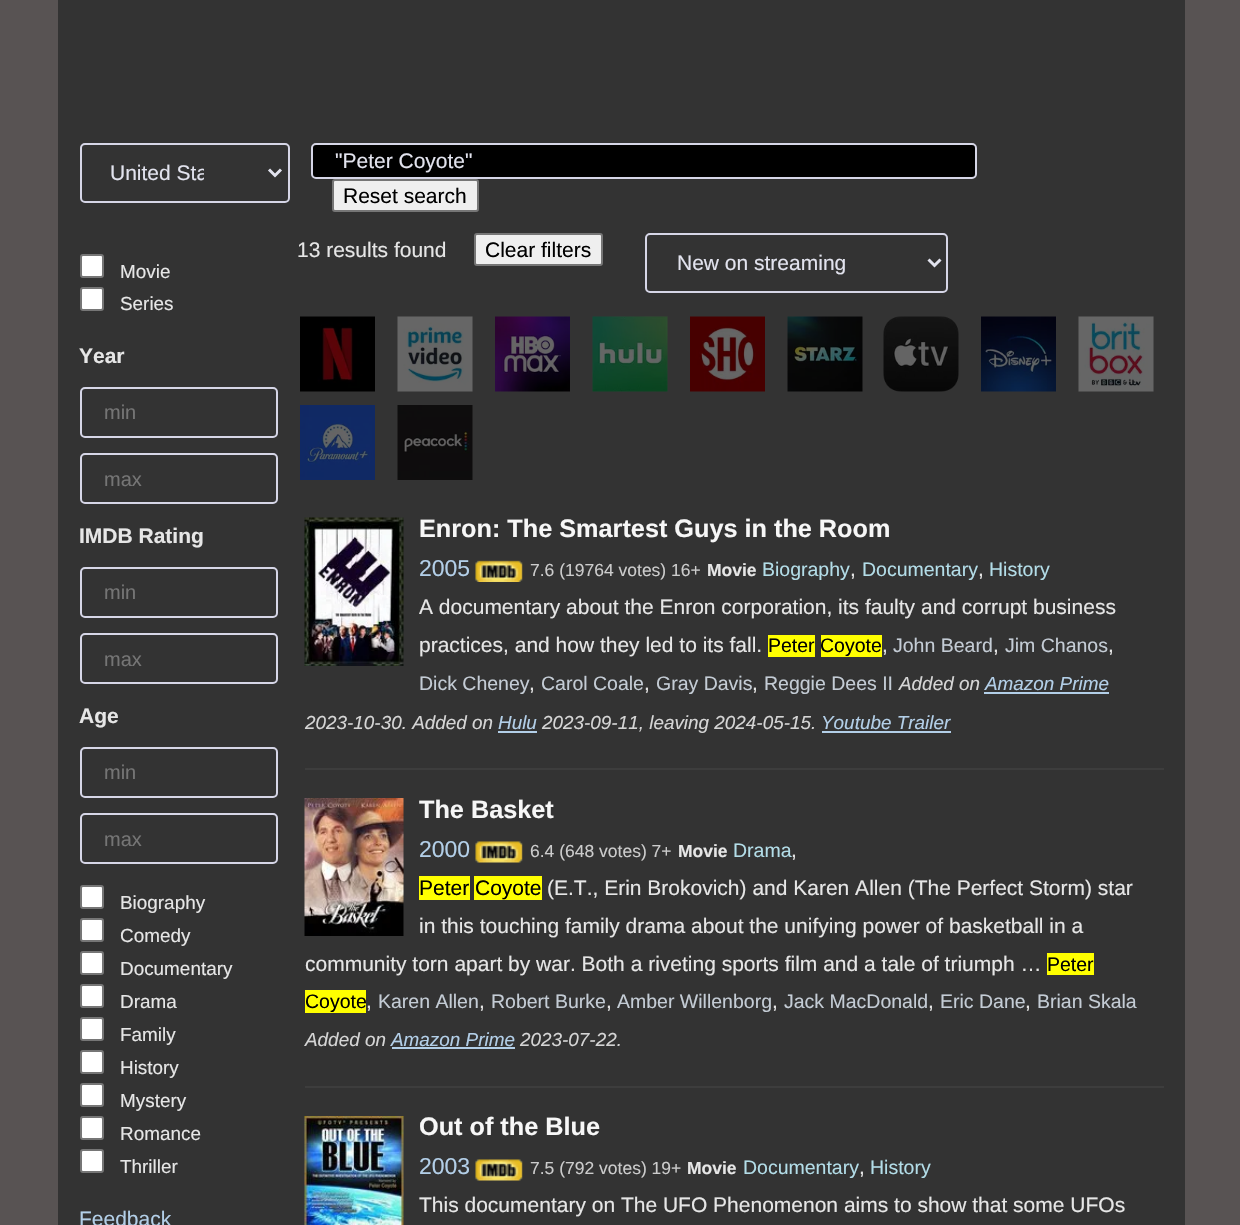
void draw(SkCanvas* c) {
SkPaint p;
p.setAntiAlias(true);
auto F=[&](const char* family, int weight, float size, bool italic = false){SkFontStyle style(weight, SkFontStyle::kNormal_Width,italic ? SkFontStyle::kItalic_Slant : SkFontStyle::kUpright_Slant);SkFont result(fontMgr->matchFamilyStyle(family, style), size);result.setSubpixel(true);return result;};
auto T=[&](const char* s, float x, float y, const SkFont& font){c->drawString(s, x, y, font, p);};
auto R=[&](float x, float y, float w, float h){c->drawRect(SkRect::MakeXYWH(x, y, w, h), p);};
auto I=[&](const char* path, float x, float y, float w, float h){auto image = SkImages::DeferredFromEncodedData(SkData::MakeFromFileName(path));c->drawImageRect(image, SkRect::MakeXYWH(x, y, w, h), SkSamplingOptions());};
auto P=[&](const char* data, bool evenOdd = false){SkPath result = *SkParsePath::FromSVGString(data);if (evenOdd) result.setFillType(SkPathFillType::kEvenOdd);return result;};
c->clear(0xff585353);
p.setColor(0xff333333);
R(58,0,1127,1225);
p.setStroke(true);
p.setStrokeWidth(2);
p.setColor(0xffd6d6e7);
c->drawRoundRect(SkRect::MakeXYWH(81,144,208,58),4,4,p);
p.setStrokeWidth(3);
p.setColor(0xffe2e3ee);
c->drawPath(P("M269 169.5l6 6l6-6"),p);
c->save();
c->clipRect(SkRect::MakeXYWH(111,159,93,27));
auto f1 = F("Liberation Sans",400,21);
p.setStroke(false);
T("United Sta",110,180,f1);
c->restore();
p.setColor(0xff000000);
c->drawRoundRect(SkRect::MakeXYWH(312,144,664,34),4,4,p);
p.setStroke(true);
p.setStrokeWidth(2);
p.setColor(0xffd6d6e7);
c->drawRoundRect(SkRect::MakeXYWH(312,144,664,34),4,4,p);
p.setStroke(false);
p.setColor(0xffe2e3ee);
T("\"Peter Coyote\"",335,168,f1);
p.setColor(0xffefefef);
c->drawRoundRect(SkRect::MakeXYWH(333,180,145,31),2,2,p);
p.setStroke(true);
p.setColor(0xff767676);
c->drawRoundRect(SkRect::MakeXYWH(333,180,145,31),2,2,p);
p.setStroke(false);
p.setColor(0xff000000);
T("Reset search",343,203,f1);
p.setColor(0xffffffff);
c->drawRoundRect(SkRect::MakeXYWH(81,255,22,22),2,2,p);
p.setStroke(true);
p.setColor(0xff767676);
c->drawRoundRect(SkRect::MakeXYWH(81,255,22,22),2,2,p);
auto f2 = F("Liberation Sans",400,18.9);
p.setStroke(false);
p.setColor(0xffe6e6e6);
T("Movie",120,278,f2);
p.setColor(0xffffffff);
c->drawRoundRect(SkRect::MakeXYWH(81,288,22,22),2,2,p);
p.setStroke(true);
p.setColor(0xff767676);
c->drawRoundRect(SkRect::MakeXYWH(81,288,22,22),2,2,p);
p.setStroke(false);
p.setColor(0xffe6e6e6);
T("Series",120,310,f2);
auto f3 = F("Liberation Sans",700,21);
T("Year",79,363,f3);
p.setStroke(true);
p.setColor(0xffd6d6e7);
c->drawRoundRect(SkRect::MakeXYWH(81,388,196,49),4,4,p);
auto f4 = F("Liberation Sans",400,20);
p.setStroke(false);
p.setColor(0xff757575);
T("min",104,419,f4);
p.setStroke(true);
p.setColor(0xffd6d6e7);
c->drawRoundRect(SkRect::MakeXYWH(81,454,196,49),4,4,p);
p.setStroke(false);
p.setColor(0xff757575);
T("max",104,486,f4);
p.setColor(0xffe6e6e6);
T("IMDB Rating",79,543,f3);
p.setStroke(true);
p.setColor(0xffd6d6e7);
c->drawRoundRect(SkRect::MakeXYWH(81,568,196,49),4,4,p);
p.setStroke(false);
p.setColor(0xff757575);
T("min",104,599,f4);
p.setStroke(true);
p.setColor(0xffd6d6e7);
c->drawRoundRect(SkRect::MakeXYWH(81,634,196,49),4,4,p);
p.setStroke(false);
p.setColor(0xff757575);
T("max",104,666,f4);
p.setColor(0xffe6e6e6);
T("Age",79,723,f3);
p.setStroke(true);
p.setColor(0xffd6d6e7);
c->drawRoundRect(SkRect::MakeXYWH(81,748,196,49),4,4,p);
p.setStroke(false);
p.setColor(0xff757575);
T("min",104,779,f4);
p.setStroke(true);
p.setColor(0xffd6d6e7);
c->drawRoundRect(SkRect::MakeXYWH(81,814,196,49),4,4,p);
p.setStroke(false);
p.setColor(0xff757575);
T("max",104,846,f4);
p.setColor(0xffffffff);
c->drawRoundRect(SkRect::MakeXYWH(81,886,22,22),2,2,p);
p.setStroke(true);
p.setColor(0xff767676);
c->drawRoundRect(SkRect::MakeXYWH(81,886,22,22),2,2,p);
p.setStroke(false);
p.setColor(0xffe6e6e6);
T("Biography",120,909,f2);
p.setColor(0xffffffff);
c->drawRoundRect(SkRect::MakeXYWH(81,919,22,22),2,2,p);
p.setStroke(true);
p.setColor(0xff767676);
c->drawRoundRect(SkRect::MakeXYWH(81,919,22,22),2,2,p);
p.setStroke(false);
p.setColor(0xffe6e6e6);
T("Comedy",120,942,f2);
p.setColor(0xffffffff);
c->drawRoundRect(SkRect::MakeXYWH(81,952,22,22),2,2,p);
p.setStroke(true);
p.setColor(0xff767676);
c->drawRoundRect(SkRect::MakeXYWH(81,952,22,22),2,2,p);
p.setStroke(false);
p.setColor(0xffe6e6e6);
T("Documentary",120,975,f2);
p.setColor(0xffffffff);
c->drawRoundRect(SkRect::MakeXYWH(81,985,22,22),2,2,p);
p.setStroke(true);
p.setColor(0xff767676);
c->drawRoundRect(SkRect::MakeXYWH(81,985,22,22),2,2,p);
p.setStroke(false);
p.setColor(0xffe6e6e6);
T("Drama",120,1008,f2);
p.setColor(0xffffffff);
c->drawRoundRect(SkRect::MakeXYWH(81,1018,22,22),2,2,p);
p.setStroke(true);
p.setColor(0xff767676);
c->drawRoundRect(SkRect::MakeXYWH(81,1018,22,22),2,2,p);
p.setStroke(false);
p.setColor(0xffe6e6e6);
T("Family",120,1041,f2);
p.setColor(0xffffffff);
c->drawRoundRect(SkRect::MakeXYWH(81,1051,22,22),2,2,p);
p.setStroke(true);
p.setColor(0xff767676);
c->drawRoundRect(SkRect::MakeXYWH(81,1051,22,22),2,2,p);
p.setStroke(false);
p.setColor(0xffe6e6e6);
T("History",120,1074,f2);
p.setColor(0xffffffff);
c->drawRoundRect(SkRect::MakeXYWH(81,1084,22,22),2,2,p);
p.setStroke(true);
p.setColor(0xff767676);
c->drawRoundRect(SkRect::MakeXYWH(81,1084,22,22),2,2,p);
p.setStroke(false);
p.setColor(0xffe6e6e6);
T("Mystery",120,1107,f2);
p.setColor(0xffffffff);
c->drawRoundRect(SkRect::MakeXYWH(81,1117,22,22),2,2,p);
p.setStroke(true);
p.setColor(0xff767676);
c->drawRoundRect(SkRect::MakeXYWH(81,1117,22,22),2,2,p);
p.setStroke(false);
p.setColor(0xffe6e6e6);
T("Romance",120,1140,f2);
p.setColor(0xffffffff);
c->drawRoundRect(SkRect::MakeXYWH(81,1150,22,22),2,2,p);
p.setStroke(true);
p.setColor(0xff767676);
c->drawRoundRect(SkRect::MakeXYWH(81,1150,22,22),2,2,p);
p.setStroke(false);
p.setColor(0xffe6e6e6);
T("Thriller",120,1173,f2);
p.setColor(0xffb3cfe8);
T("Feedback",79,1226,f1);
p.setColor(0xffe6e6e6);
T("13 results found",297,257,f1);
p.setColor(0xffefefef);
c->drawRoundRect(SkRect::MakeXYWH(475,234,127,31),2,2,p);
p.setStroke(true);
p.setColor(0xff767676);
c->drawRoundRect(SkRect::MakeXYWH(475,234,127,31),2,2,p);
p.setStroke(false);
p.setColor(0xff000000);
T("Clear filters",485,257,f1);
p.setStroke(true);
p.setColor(0xffd6d6e7);
c->drawRoundRect(SkRect::MakeXYWH(646,234,301,58),4,4,p);
p.setStrokeWidth(3);
p.setColor(0xffe2e3ee);
c->drawPath(P("M928.5 259.5l6 6l6-6"),p);
p.setStroke(false);
T("New on streaming",677,270,f1);
I("1.png",300,316,75,76);
I("2.png",397,316,76,76);
I("3.png",495,316,75,76);
I("4.png",592,316,76,76);
I("5.png",690,316,75,76);
I("6.png",787,316,76,76);
I("7.png",883,316,76,76);
I("8.png",981,316,75,76);
I("9.png",1078,316,76,76);
I("10.png",300,405,75,75);
I("11.png",397,405,76,75);
p.setColor(0xff3d3d3d);
R(305,768,859,2);
I("12.png",304,517,100,149);
auto f5 = F("Liberation Sans",700,25.25);
p.setColor(0xfff7f7f7);
T("Enron: The Smartest Guys in the Room",419,537,f5);
auto f6 = F("Liberation Sans",400,23);
p.setColor(0xffb3cfe8);
T("2005",419,576,f6);
I("13.png",475,560,48,22);
auto f7 = F("Liberation Sans",400,17.5);
p.setColor(0xffcccccc);
T("7.6 (19764 votes) 16+",530,576,f7);
auto f8 = F("Liberation Sans",700,17.5);
p.setColor(0xffe6e6e6);
T("Movie",707,576,f8);
auto f9 = F("Liberation Sans",400,19.5);
p.setColor(0xffb3dde8);
T("Biography",762,576,f9);
p.setColor(0xffe6e6e6);
T(",",850,576,f1);
p.setColor(0xffb3dde8);
T("Documentary",862,576,f9);
p.setColor(0xffe6e6e6);
T(",",978,576,f1);
p.setColor(0xffb3dde8);
T("History",989,576,f9);
p.setColor(0xffe6e6e6);
T("A documentary about the Enron corporation, its faulty and corrupt business",419,614,f1);
T("practices, and how they led to its fall.",419,652,f1);
p.setColor(0xffffff00);
R(768,635,47,22);
p.setColor(0xff000000);
T("Peter",768,652,f9);
p.setColor(0xffffff00);
R(821,635,61,22);
p.setColor(0xff000000);
T("Coyote",820,652,f9);
p.setColor(0xffe6e6e6);
T(",",882,652,f1);
p.setColor(0xffc4ccd5);
T("John Beard",893,652,f9);
p.setColor(0xffe6e6e6);
T(",",993,652,f1);
p.setColor(0xffc4ccd5);
T("Jim Chanos",1005,652,f9);
p.setColor(0xffe6e6e6);
T(",",1108,652,f1);
p.setColor(0xffc4ccd5);
T("Dick Cheney",419,690,f9);
p.setColor(0xffe6e6e6);
T(",",529,690,f1);
p.setColor(0xffc4ccd5);
T("Carol Coale",541,690,f9);
p.setColor(0xffe6e6e6);
T(",",644,690,f1);
p.setColor(0xffc4ccd5);
T("Gray Davis",656,690,f9);
p.setColor(0xffe6e6e6);
T(",",752,690,f1);
p.setColor(0xffc4ccd5);
T("Reggie Dees II",764,690,f9);
auto f10 = F("Liberation Sans",400,18.9,true);
p.setColor(0xffd5d5d5);
T("Added on",899,690,f10);
p.setColor(0xffb3cfe8);
T("Amazon Prime",985,690,f10);
R(984,692,125,2);
p.setColor(0xffd5d5d5);
T("2023-10-30. Added on",305,729,f10);
p.setColor(0xffb3cfe8);
T("Hulu",498,729,f10);
R(498,731,39,2);
p.setColor(0xffd5d5d5);
T("2023-09-11, leaving 2024-05-15.",542,729,f10);
p.setColor(0xffb3cfe8);
T("Youtube Trailer",821,729,f10);
R(822,731,129,2);
p.setColor(0xff3d3d3d);
R(305,1086,859,2);
I("14.png",304,798,100,138);
p.setColor(0xfff7f7f7);
T("The Basket",419,818,f5);
p.setColor(0xffb3cfe8);
T("2000",419,857,f6);
I("15.png",475,841,48,22);
p.setColor(0xffcccccc);
T("6.4 (648 votes) 7+",530,857,f7);
p.setColor(0xffe6e6e6);
T("Movie",678,857,f8);
p.setColor(0xffb3dde8);
T("Drama",733,857,f9);
p.setColor(0xffe6e6e6);
T(",",791,857,f1);
p.setColor(0xffffff00);
R(419,876,51,24);
p.setColor(0xff000000);
T("Peter",419,895,f1);
p.setColor(0xffffff00);
R(474,876,68,24);
p.setColor(0xff000000);
T("Coyote",475,895,f1);
p.setColor(0xffe6e6e6);
T("(E.T., Erin Brokovich) and Karen Allen (The Perfect Storm) star",547,895,f1);
T("in this touching family drama about the unifying power of basketball in a",419,933,f1);
T("community torn apart by war. Both a riveting sports film and a tale of triumph …",305,971,f1);
p.setColor(0xffffff00);
R(1047,953,47,22);
p.setColor(0xff000000);
T("Peter",1047,971,f9);
p.setColor(0xffffff00);
R(305,990,61,23);
p.setColor(0xff000000);
T("Coyote",305,1008,f9);
p.setColor(0xffe6e6e6);
T(",",366,1008,f1);
p.setColor(0xffc4ccd5);
T("Karen Allen",378,1008,f9);
p.setColor(0xffe6e6e6);
T(",",479,1008,f1);
p.setColor(0xffc4ccd5);
T("Robert Burke",491,1008,f9);
p.setColor(0xffe6e6e6);
T(",",606,1008,f1);
p.setColor(0xffc4ccd5);
T("Amber Willenborg",617,1008,f9);
p.setColor(0xffe6e6e6);
T(",",772,1008,f1);
p.setColor(0xffc4ccd5);
T("Jack MacDonald",784,1008,f9);
p.setColor(0xffe6e6e6);
T(",",928,1008,f1);
p.setColor(0xffc4ccd5);
T("Eric Dane",940,1008,f9);
p.setColor(0xffe6e6e6);
T(",",1025,1008,f1);
p.setColor(0xffc4ccd5);
T("Brian Skala",1037,1008,f9);
p.setColor(0xffd5d5d5);
T("Added on",305,1046,f10);
p.setColor(0xffb3cfe8);
T("Amazon Prime",391,1046,f10);
R(392,1047,123,2);
p.setColor(0xffd5d5d5);
T("2023-07-22.",520,1046,f10);
I("16.png",304,1116,100,109);
p.setColor(0xfff7f7f7);
T("Out of the Blue",419,1135,f5);
p.setColor(0xffb3cfe8);
T("2003",419,1174,f6);
I("15.png",475,1159,48,22);
p.setColor(0xffcccccc);
T("7.5 (792 votes) 19+",530,1174,f7);
p.setColor(0xffe6e6e6);
T("Movie",687,1174,f8);
p.setColor(0xffb3dde8);
T("Documentary",743,1174,f9);
p.setColor(0xffe6e6e6);
T(",",859,1174,f1);
p.setColor(0xffb3dde8);
T("History",870,1174,f9);
p.setColor(0xffe6e6e6);
T("This documentary on The UFO Phenomenon aims to show that some UFOs",419,1212,f1);
}
